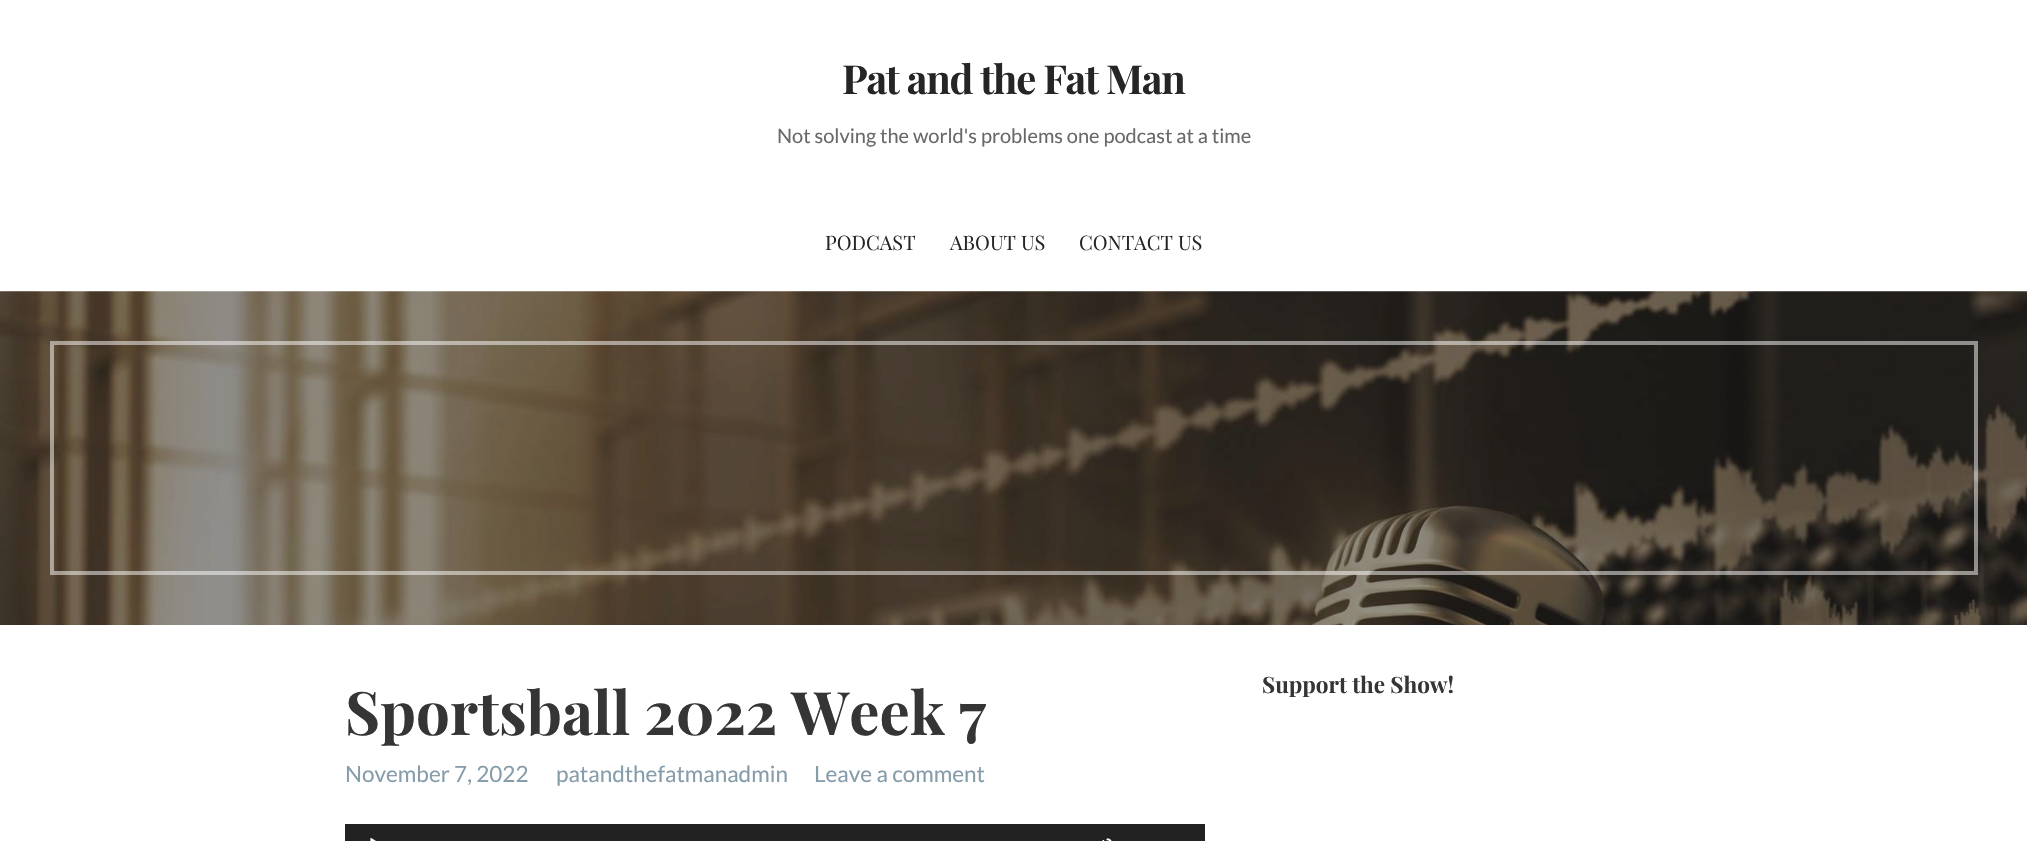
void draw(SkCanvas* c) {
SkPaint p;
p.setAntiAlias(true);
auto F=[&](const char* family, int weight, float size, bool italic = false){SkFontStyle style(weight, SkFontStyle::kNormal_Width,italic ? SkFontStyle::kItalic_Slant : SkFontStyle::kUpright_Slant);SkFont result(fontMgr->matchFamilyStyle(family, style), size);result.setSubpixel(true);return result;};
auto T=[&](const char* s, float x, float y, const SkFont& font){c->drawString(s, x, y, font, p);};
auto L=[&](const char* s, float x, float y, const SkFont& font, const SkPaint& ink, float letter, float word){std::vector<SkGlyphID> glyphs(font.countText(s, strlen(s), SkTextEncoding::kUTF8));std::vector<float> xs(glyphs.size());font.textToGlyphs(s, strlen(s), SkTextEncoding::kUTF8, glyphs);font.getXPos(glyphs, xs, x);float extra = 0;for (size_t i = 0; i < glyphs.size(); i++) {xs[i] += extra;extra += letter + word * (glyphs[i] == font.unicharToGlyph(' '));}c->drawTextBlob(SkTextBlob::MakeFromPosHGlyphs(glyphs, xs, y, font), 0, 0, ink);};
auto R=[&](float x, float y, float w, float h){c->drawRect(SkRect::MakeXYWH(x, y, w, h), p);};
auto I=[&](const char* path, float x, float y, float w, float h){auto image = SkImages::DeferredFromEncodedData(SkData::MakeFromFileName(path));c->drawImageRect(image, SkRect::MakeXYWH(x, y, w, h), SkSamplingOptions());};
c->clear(0xffffffff);
auto f1 = F("Playfair Display",700,40);
p.setColor(0xff252525);
L("Pat and the Fat Man",842,94,f1,p,-1.25,0);
auto f2 = F("Lato",400,20);
p.setColor(0xff686868);
T("Not solving the world's problems one podcast at a time",777,143,f2);
auto f3 = F("Playfair Display",400,20);
p.setColor(0xff252525);
T("PODCAST",825,250,f3);
T("ABOUT US",950,250,f3);
T("CONTACT US",1079,250,f3);
I("1.png",0,291,2027,334);
p.setStroke(true);
p.setStrokeWidth(4);
p.setColor(0x80ffffff);
c->drawRect(SkRect::MakeXYWH(52,343,1924,230),p);
auto f4 = F("Playfair Display",700,60);
p.setStroke(false);
p.setColor(0xff353535);
T("Sportsball 2022 Week 7",345,735,f4);
auto f5 = F("Lato",400,22.5);
p.setColor(0xff859caa);
T("November 7, 2022",345,782,f5);
T("patandthefatmanadmin",556,782,f5);
T("Leave a comment",814,782,f5);
p.setColor(0xff222222);
R(345,824,860,17);
I("2.png",370,838,6,3);
I("3.png",1102,838,10,3);
auto f6 = F("Playfair Display",700,22.5);
p.setColor(0xff353535);
T("Support the Show!",1262,693,f6);
}
